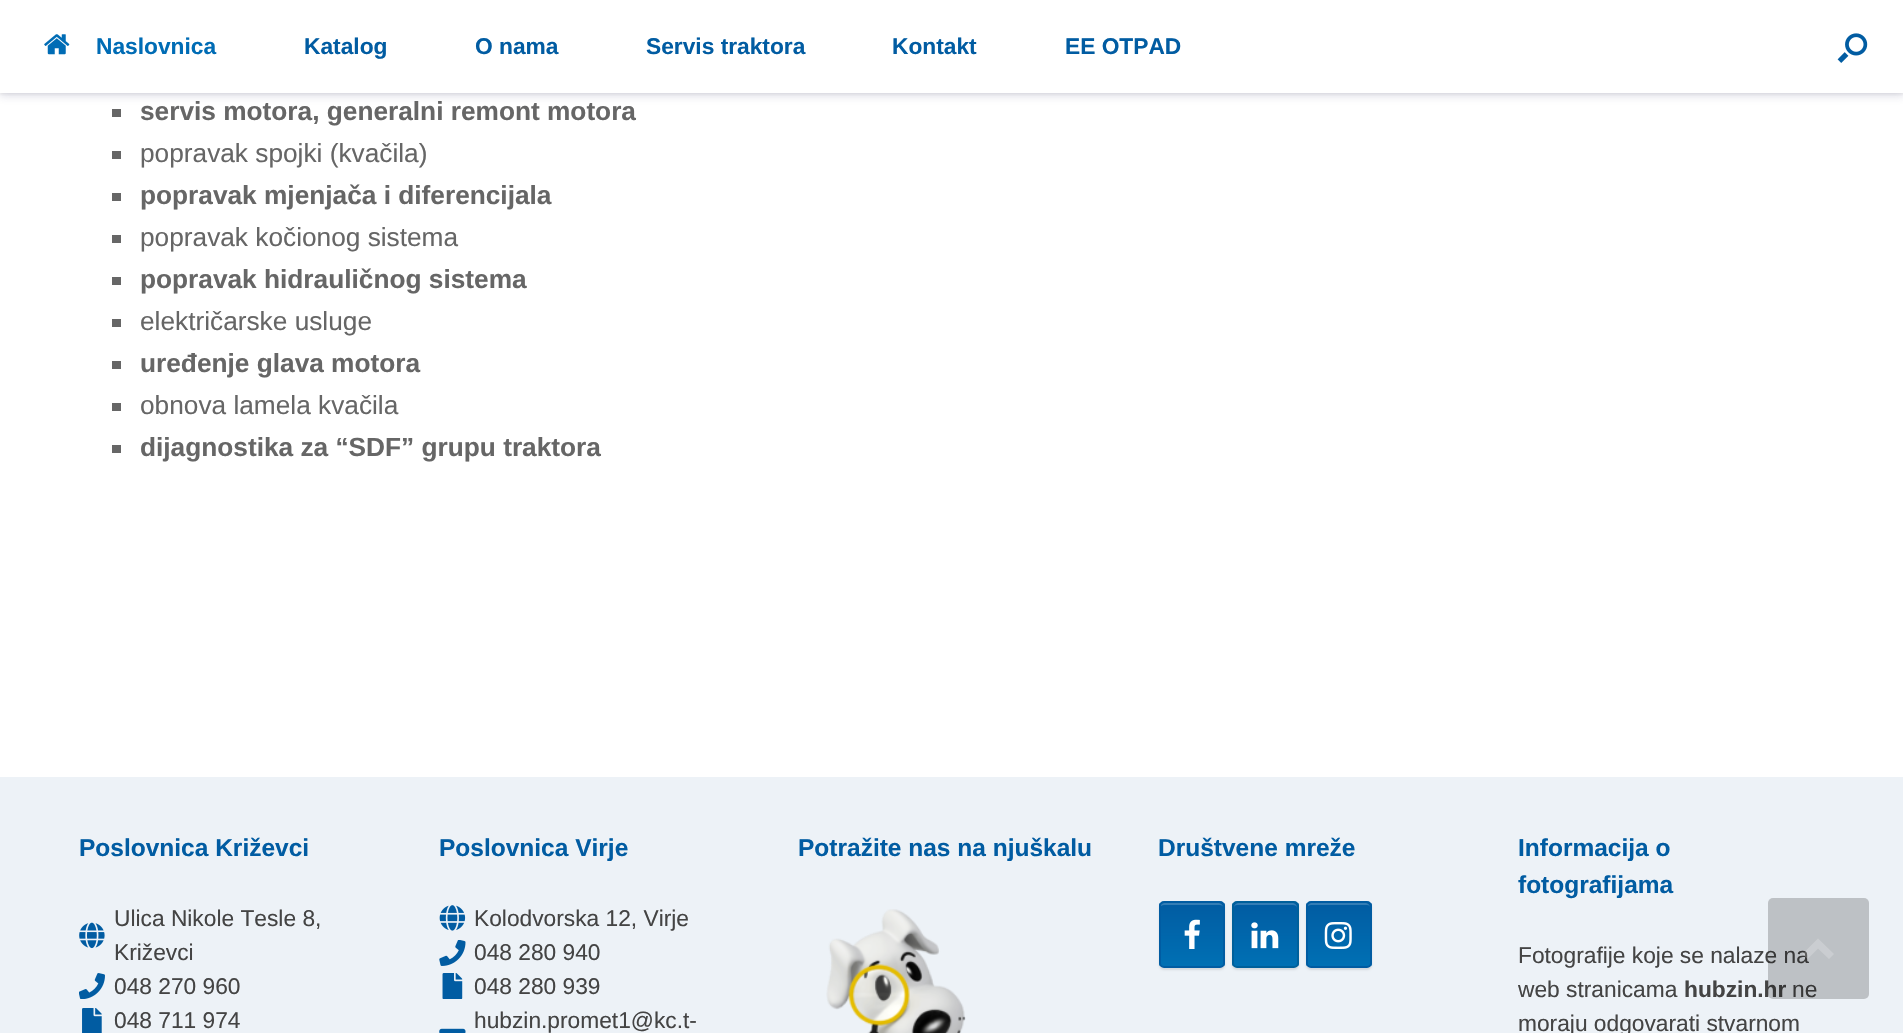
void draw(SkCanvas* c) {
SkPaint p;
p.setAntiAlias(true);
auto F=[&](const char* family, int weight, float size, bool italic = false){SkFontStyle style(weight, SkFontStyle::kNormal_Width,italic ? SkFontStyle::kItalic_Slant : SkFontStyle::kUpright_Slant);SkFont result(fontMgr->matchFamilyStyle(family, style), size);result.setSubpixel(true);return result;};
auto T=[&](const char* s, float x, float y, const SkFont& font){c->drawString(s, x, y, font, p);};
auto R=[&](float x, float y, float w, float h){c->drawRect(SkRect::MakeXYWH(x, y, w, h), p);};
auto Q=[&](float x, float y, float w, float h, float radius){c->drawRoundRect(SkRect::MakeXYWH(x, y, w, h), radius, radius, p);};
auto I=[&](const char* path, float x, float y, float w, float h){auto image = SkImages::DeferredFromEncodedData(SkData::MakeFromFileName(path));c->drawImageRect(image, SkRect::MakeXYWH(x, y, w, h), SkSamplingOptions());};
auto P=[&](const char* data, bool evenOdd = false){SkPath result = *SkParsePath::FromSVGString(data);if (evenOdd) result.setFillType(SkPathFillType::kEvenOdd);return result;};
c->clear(0xffedf2f7);
p.setColor(0xffffffff);
R(0,93,1903,684);
p.setColor(0x0d000000);
p.setMaskFilter(SkMaskFilter::MakeBlur(kNormal_SkBlurStyle, 1));
c->drawRect(SkRect::MakeXYWH(0,2,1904,93),p);
p.setMaskFilter(nullptr);
p.setColor(0xff666666);
R(112,109,9,8);
p.setColor(0x26323269);
p.setMaskFilter(SkMaskFilter::MakeBlur(kNormal_SkBlurStyle, 4.5));
c->drawRect(SkRect::MakeXYWH(0,4,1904,92),p);
p.setMaskFilter(nullptr);
p.setColor(0xffffffff);
R(0,0,1903,93);
I("1.png",44,34,26,21);
auto f1 = F("Liberation Sans",700,22.75);
p.setColor(0xff006cb5);
T("Naslovnica",96,54,f1);
p.setColor(0xff015ca2);
T("Katalog",304,54,f1);
T("O nama",475,54,f1);
T("Servis traktora",646,54,f1);
T("Kontakt",892,54,f1);
T("EE OTPAD",1065,54,f1);
I("2.png",1837,33,31,30);
auto f2 = F("Liberation Sans",700,26.25);
p.setColor(0xff666666);
T("servis motora, generalni remont motora",140,120,f2);
R(112,151,9,8);
auto f3 = F("Liberation Sans",400,26.25);
T("popravak spojki (kvačila)",140,162,f3);
R(112,193,9,8);
T("popravak mjenjača i diferencijala",140,204,f2);
R(112,235,9,8);
T("popravak kočionog sistema",140,246,f3);
R(112,277,9,8);
T("popravak hidrauličnog sistema",140,288,f2);
R(112,319,9,8);
T("električarske usluge",140,330,f3);
R(112,361,9,8);
T("uređenje glava motora",140,372,f2);
R(112,403,9,8);
T("obnova lamela kvačila",140,414,f3);
R(112,445,9,8);
T("dijagnostika za “SDF” grupu traktora",140,456,f2);
auto f4 = F("Liberation Sans",700,24.5);
p.setColor(0xff015ca2);
T("Poslovnica Križevci",79,856,f4);
I("3.png",79,922,26,27);
auto f5 = F("Liberation Sans",400,22.75);
p.setColor(0xff444444);
T("Ulica Nikole Tesle 8,",114,926,f5);
T("Križevci",114,960,f5);
I("4.png",79,973,26,26);
T("048 270 960",114,994,f5);
I("5.png",82,1008,20,25);
T("048 711 974",114,1028,f5);
p.setColor(0xff015ca2);
T("Poslovnica Virje",439,856,f4);
I("6.png",439,905,27,26);
p.setColor(0xff444444);
T("Kolodvorska 12, Virje",474,926,f5);
I("7.png",439,940,27,26);
T("048 280 940",474,960,f5);
I("8.png",442,973,21,26);
T("048 280 939",474,994,f5);
I("9.png",439,1028,27,5);
T("hubzin.promet1@kc.t-",474,1028,f5);
p.setColor(0xff015ca2);
T("Potražite nas na njuškalu",798,856,f4);
I("10.png",826,909,140,124);
T("Društvene mreže",1158,856,f4);
p.setColor(0x1a000000);
p.setMaskFilter(SkMaskFilter::MakeBlur(kNormal_SkBlurStyle, 1));
c->drawRoundRect(SkRect::MakeXYWH(1159,903,66,67),5,5,p);
p.setMaskFilter(nullptr);
c->save();
c->clipPath(P("M1164 901h56c3 0 5 2 5 5v57c0 3-2 5-5 5h-56c-3 0-5-2-5-5v-57c0-3 2-5 5-5z"),true);
{
const SkColor colors[] = {0xff0070b4,0xff015ca2};
const float stops[] = {0,1};
const SkPoint ends[] = {{1160,966}, {1160,903}};
p.setShader(SkGradientShader::MakeLinear(ends, colors, stops, 2, SkTileMode::kClamp));
p.setAlpha(255);
}
R(1159,903,66,63);
c->restore();
p.setShader(nullptr);
p.setColor(0xff347db5);
c->drawPath(P("M1164 905h56c2 0 3 1 3 3c0-7-8-5-13-5h-37c-5 0-13-2-13 5c0-2 2-3 4-3z"),p);
p.setStroke(true);
p.setStrokeWidth(2);
p.setColor(0xff015ca2);
c->drawRoundRect(SkRect::MakeXYWH(1160,902,64,65),4,4,p);
I("11.png",1184,919,16,30);
p.setStroke(false);
p.setColor(0x1a000000);
p.setMaskFilter(SkMaskFilter::MakeBlur(kNormal_SkBlurStyle, 1));
c->drawRoundRect(SkRect::MakeXYWH(1232,903,67,67),5,5,p);
p.setMaskFilter(nullptr);
c->save();
c->clipPath(P("M1237 901h57c3 0 5 2 5 5v57c0 3-2 5-5 5h-57c-3 0-5-2-5-5v-57c0-3 2-5 5-5z"),true);
{
const SkColor colors[] = {0xff0070b4,0xff015ca2};
const float stops[] = {0,1};
const SkPoint ends[] = {{1234,966}, {1234,903}};
p.setShader(SkGradientShader::MakeLinear(ends, colors, stops, 2, SkTileMode::kClamp));
p.setAlpha(255);
}
R(1232,903,67,63);
c->restore();
p.setShader(nullptr);
p.setColor(0xff347db5);
c->drawPath(P("M1237 905h56c2 0 4 1 4 3c0-7-8-5-13-5h-37c-5 0-13-2-13 5c0-2 1-3 3-3z"),p);
p.setStroke(true);
p.setColor(0xff00609b);
c->drawRoundRect(SkRect::MakeXYWH(1233,902,65,65),4,4,p);
I("12.png",1251,922,28,27);
p.setStroke(false);
p.setColor(0x1a000000);
p.setMaskFilter(SkMaskFilter::MakeBlur(kNormal_SkBlurStyle, 1));
c->drawRoundRect(SkRect::MakeXYWH(1306,903,66,67),5,5,p);
p.setMaskFilter(nullptr);
c->save();
c->clipPath(P("M1311 901h56c3 0 5 2 5 5v57c0 3-2 5-5 5h-56c-3 0-5-2-5-5v-57c0-3 2-5 5-5z"),true);
{
const SkColor colors[] = {0xff0070b4,0xff015ca2};
const float stops[] = {0,1};
const SkPoint ends[] = {{1307,966}, {1307,903}};
p.setShader(SkGradientShader::MakeLinear(ends, colors, stops, 2, SkTileMode::kClamp));
p.setAlpha(255);
}
R(1306,903,66,63);
c->restore();
p.setShader(nullptr);
p.setColor(0xff347db5);
c->drawPath(P("M1311 905h56c2 0 3 1 3 3c0-7-8-5-13-5h-37c-5 0-13-2-13 5c0-2 2-3 4-3z"),p);
p.setStroke(true);
p.setColor(0xff015ca2);
c->drawRoundRect(SkRect::MakeXYWH(1307,902,64,65),4,4,p);
I("13.png",1324,922,28,27);
p.setStroke(false);
T("Informacija o",1518,856,f4);
T("fotografijama",1518,893,f4);
p.setColor(0xff444444);
T("Fotografije koje se nalaze na",1518,963,f5);
T("web stranicama",1518,997,f5);
T("hubzin.hr",1684,997,f1);
T("ne",1792,997,f5);
T("moraju odgovarati stvarnom",1518,1031,f5);
p.setColor(0x33000000);
Q(1768,898,101,101,5);
p.setColor(0x33ffffff);
c->drawPath(P("M1834 954l-16-15.5l-15.5 15.5l5 5l10.5-10.5l11 10.5z"),p);
}
